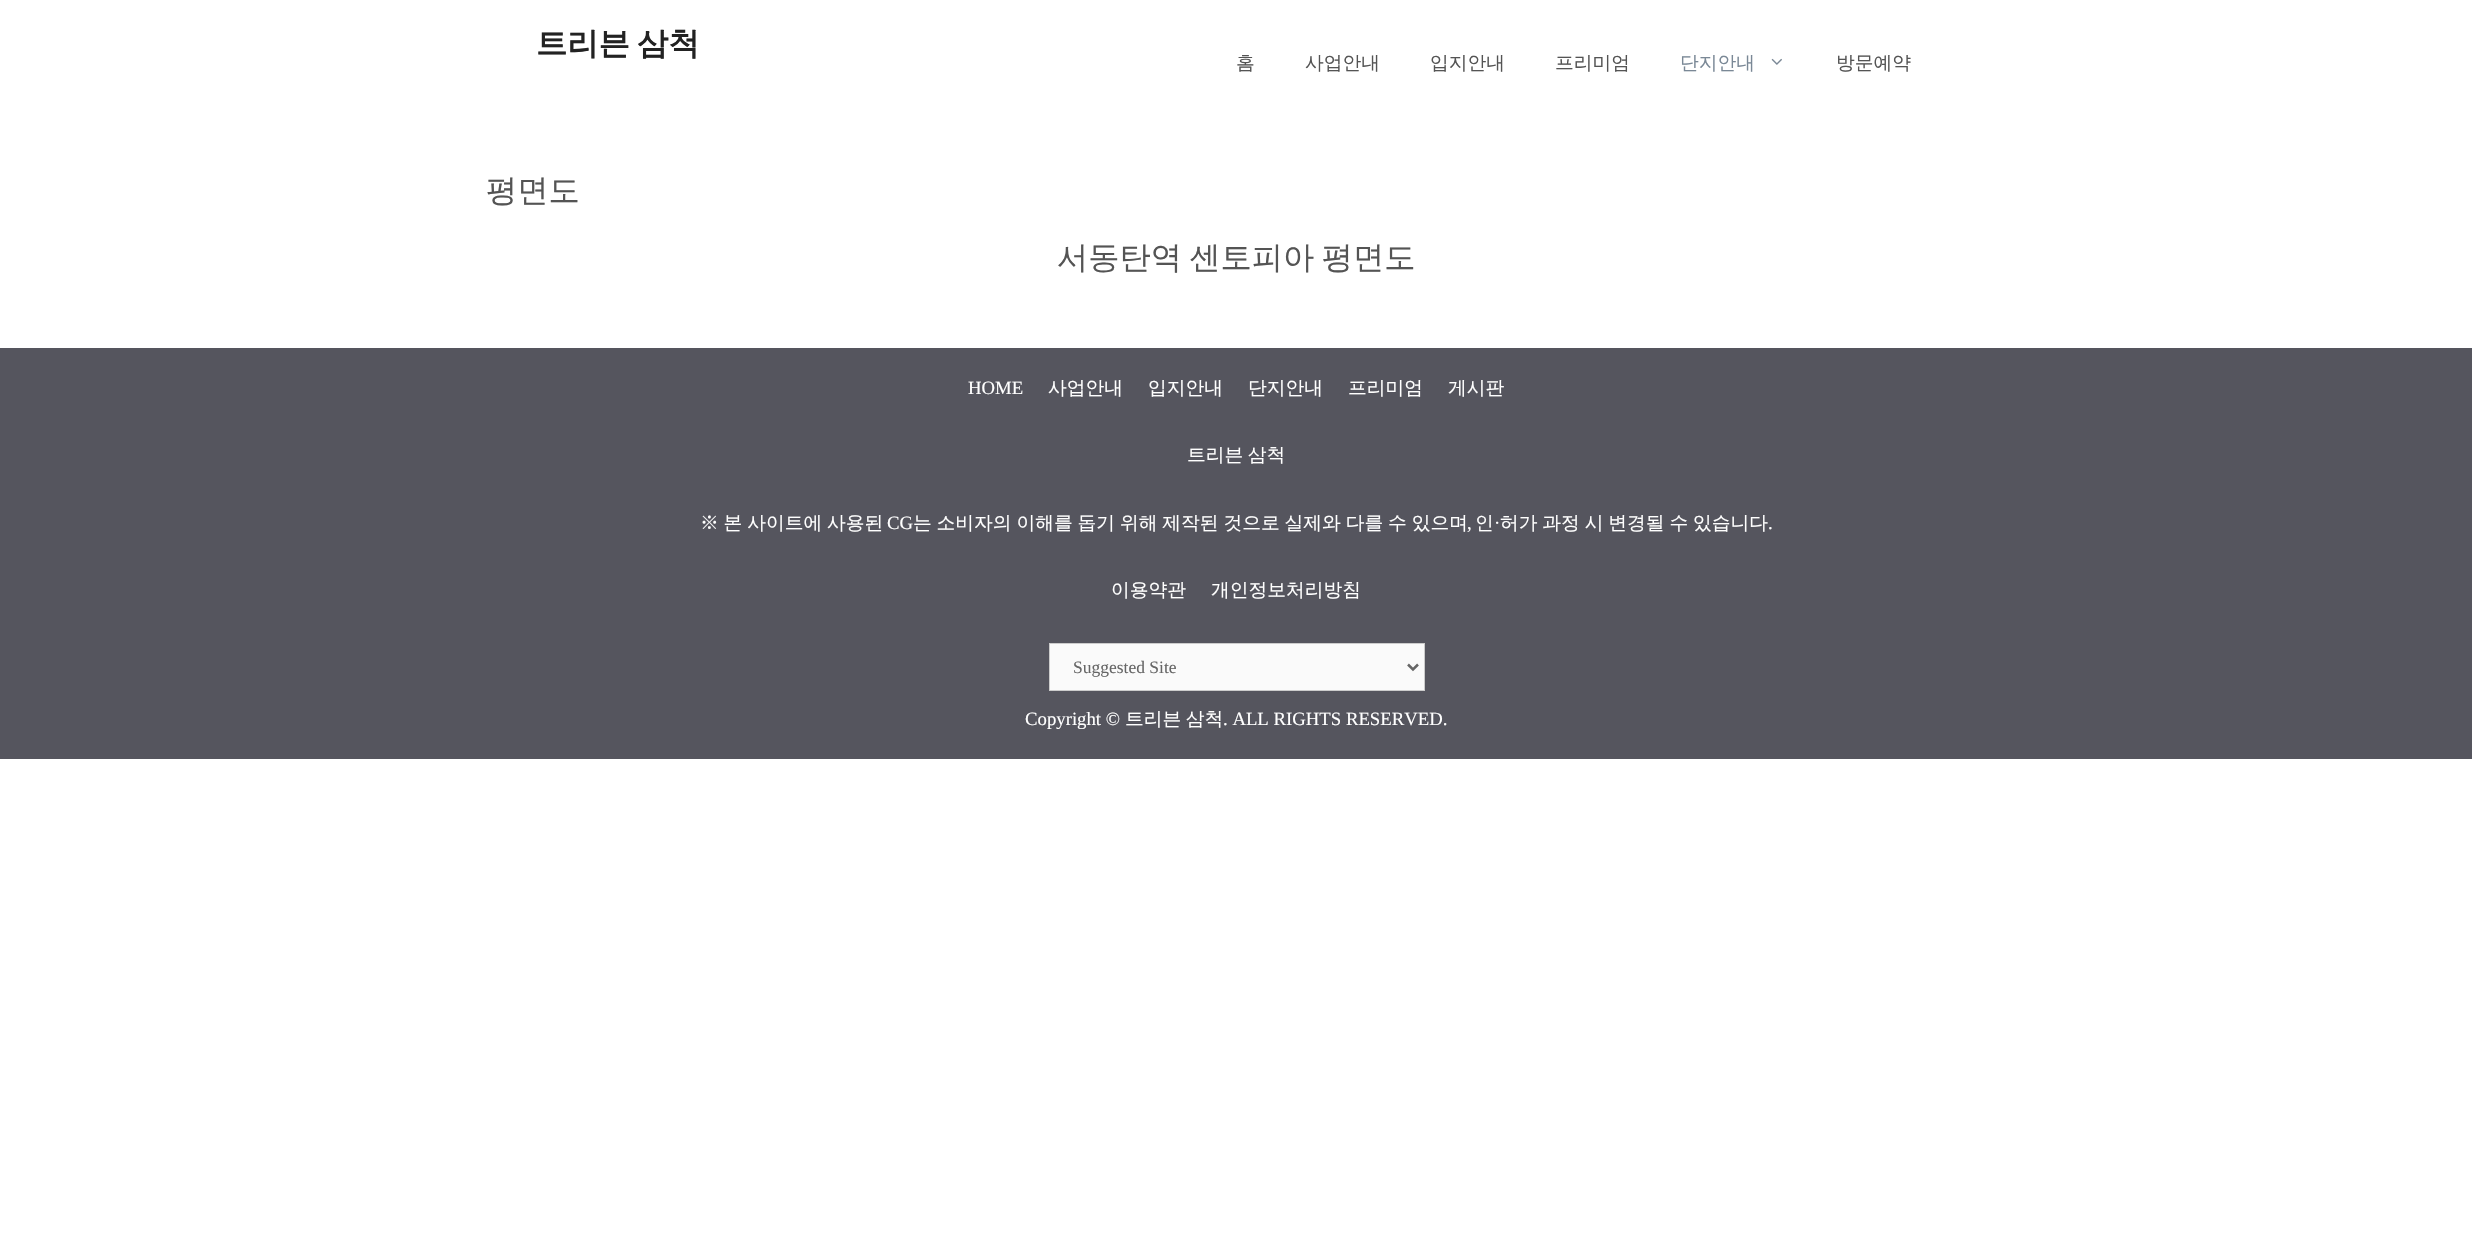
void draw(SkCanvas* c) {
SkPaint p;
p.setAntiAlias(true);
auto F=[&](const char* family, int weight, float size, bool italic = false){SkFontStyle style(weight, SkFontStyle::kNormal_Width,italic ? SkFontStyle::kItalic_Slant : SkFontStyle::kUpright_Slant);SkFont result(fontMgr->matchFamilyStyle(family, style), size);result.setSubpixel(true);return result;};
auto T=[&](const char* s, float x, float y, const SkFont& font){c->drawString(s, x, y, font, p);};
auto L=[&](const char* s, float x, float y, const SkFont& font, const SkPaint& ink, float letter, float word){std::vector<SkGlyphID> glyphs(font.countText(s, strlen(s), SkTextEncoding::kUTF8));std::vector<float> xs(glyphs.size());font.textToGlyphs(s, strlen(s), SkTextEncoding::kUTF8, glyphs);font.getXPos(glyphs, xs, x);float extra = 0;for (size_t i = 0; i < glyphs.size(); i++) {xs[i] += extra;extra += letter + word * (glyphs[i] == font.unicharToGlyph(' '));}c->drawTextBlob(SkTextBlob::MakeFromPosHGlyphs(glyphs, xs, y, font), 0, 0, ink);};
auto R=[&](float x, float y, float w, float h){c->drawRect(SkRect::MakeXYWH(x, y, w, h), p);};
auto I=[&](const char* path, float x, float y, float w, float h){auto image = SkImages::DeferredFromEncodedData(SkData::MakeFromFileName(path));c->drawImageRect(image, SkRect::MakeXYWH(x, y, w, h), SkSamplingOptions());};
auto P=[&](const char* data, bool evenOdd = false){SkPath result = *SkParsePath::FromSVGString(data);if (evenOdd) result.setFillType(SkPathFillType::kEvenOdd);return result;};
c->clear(0xffffffff);
auto f1 = F("WenQuanYi Zen Hei",700,31.25);
p.setColor(0xff222222);
L("트리븐 삼척",536,54,f1,p,0,-2);
auto f2 = F("WenQuanYi Zen Hei",500,18.75);
p.setColor(0xff545454);
T("홈",1236,69,f2);
T("사업안내",1305,69,f2);
T("입지안내",1430,69,f2);
T("프리미엄",1555,69,f2);
p.setColor(0xff7a8896);
T("단지안내",1680,69,f2);
I("1.png",1771,58,11,7);
p.setColor(0xff545454);
T("방문예약",1836,69,f2);
auto f3 = F("WenQuanYi Zen Hei",500,31.25);
T("평면도",486,201,f3);
L("서동탄역 센토피아 평면도",1057,268,f3,p,0,-2);
p.setColor(0xff55555e);
R(0,348,2472,411);
auto f4 = F("Liberation Serif",400,18.75);
p.setColor(0xffffffff);
T("HOME",968,394,f4);
T("사업안내",1048,394,f2);
T("입지안내",1148,394,f2);
T("단지안내",1248,394,f2);
T("프리미엄",1348,394,f2);
T("게시판",1448,394,f2);
L("트리븐 삼척",1187,461,f2,p,0,-1);
L("※ 본 사이트에 사용된",700,529,f2,p,0,-.75);
T("CG",887,529,f4);
L("는 소비자의 이해를 돕기 위해 제작된 것으로 실제와 다를 수 있으며",913,529,f2,p,0,-.75);
T("인",1475,529,f2);
T("·",1494,529,f4);
L("허가 과정 시 변경될 수 있습니다",1500,529,f2,p,0,-.75);
T(",",1467,529,f4);
T(".",1768,529,f4);
T("이용약관",1111,596,f2);
T("개인정보처리방침",1211,596,f2);
p.setColor(0xfffafafa);
c->drawRect(SkRect::MakeXYWH(1049.5,643.5,375,47),p);
p.setStroke(true);
p.setStrokeWidth(1);
p.setColor(0xffcccccc);
c->drawRect(SkRect::MakeXYWH(1049.5,643.5,375,47),p);
p.setStrokeWidth(2.5);
p.setColor(0xff666666);
c->drawPath(P("M1408 664.5l5 5l5-5"),p);
auto f5 = F("Liberation Serif",400,17.5);
p.setStroke(false);
T("Suggested Site",1073,673,f5);
p.setColor(0xffffffff);
T("Copyright ©",1025,725,f4);
L("트리븐 삼척",1125,725,f2,p,0,-1);
T(". ALL RIGHTS RESERVED.",1223,725,f4);
}
